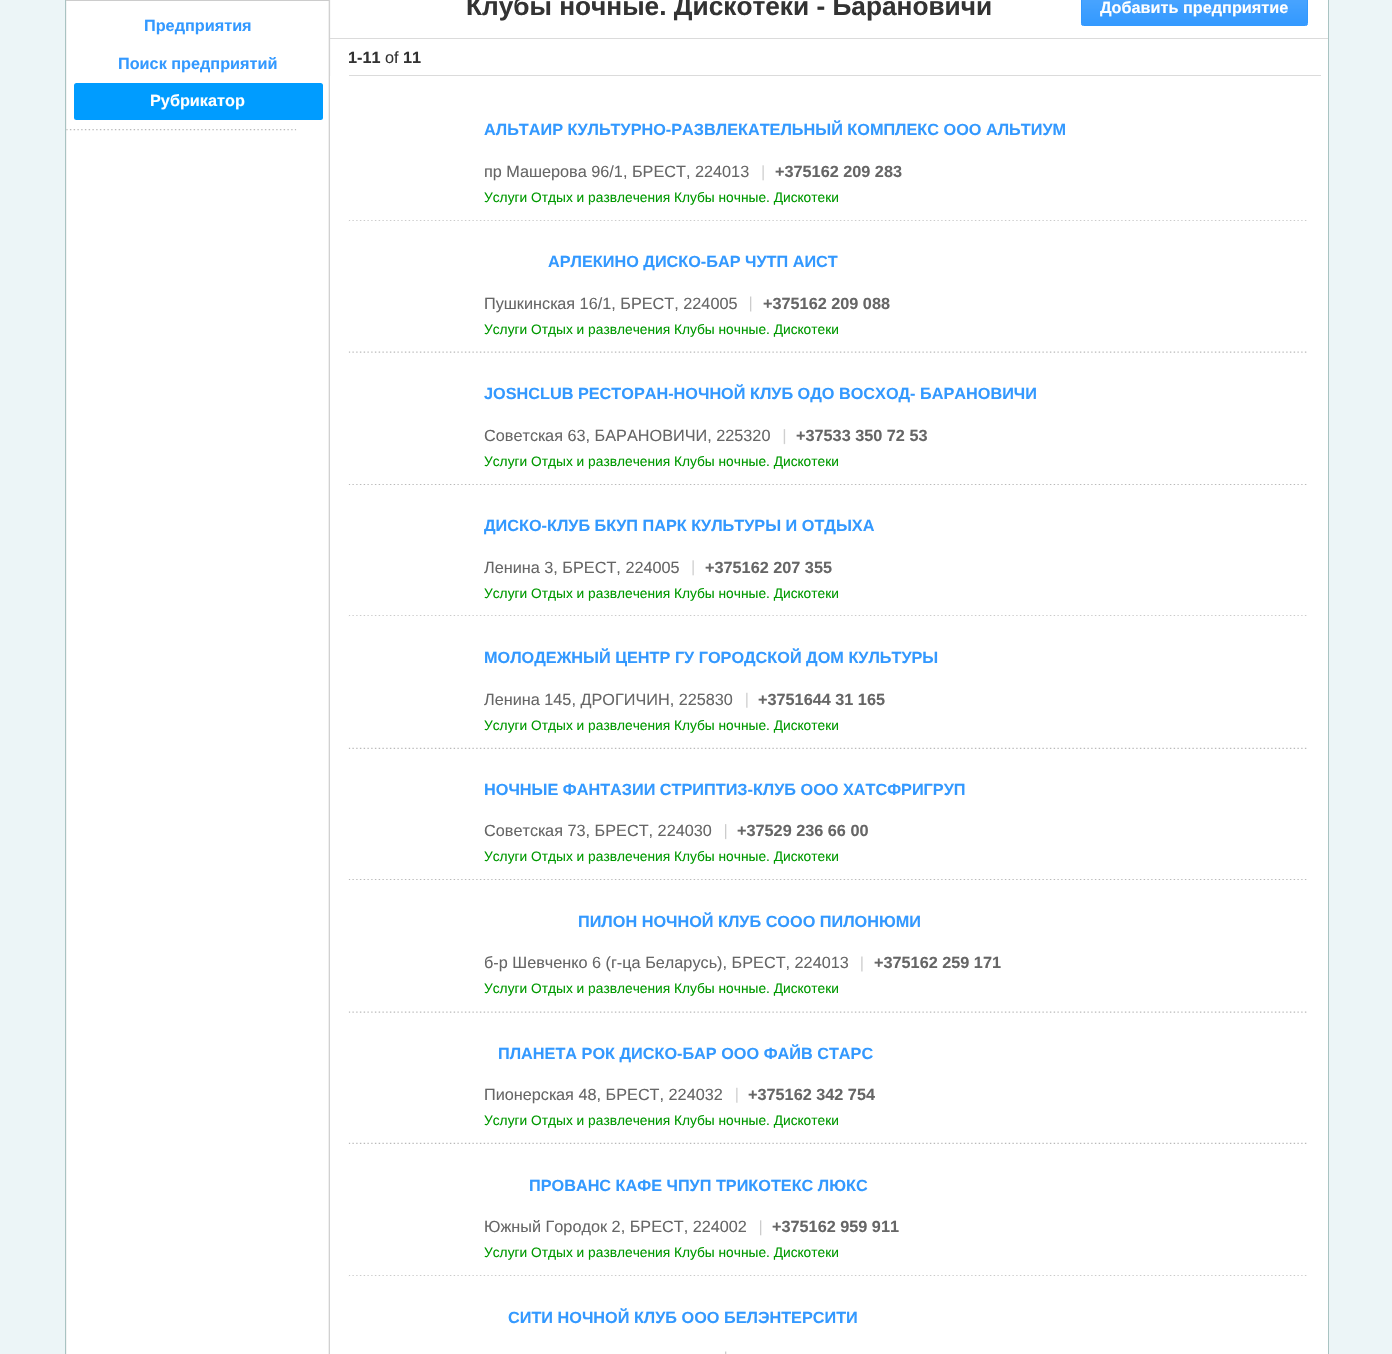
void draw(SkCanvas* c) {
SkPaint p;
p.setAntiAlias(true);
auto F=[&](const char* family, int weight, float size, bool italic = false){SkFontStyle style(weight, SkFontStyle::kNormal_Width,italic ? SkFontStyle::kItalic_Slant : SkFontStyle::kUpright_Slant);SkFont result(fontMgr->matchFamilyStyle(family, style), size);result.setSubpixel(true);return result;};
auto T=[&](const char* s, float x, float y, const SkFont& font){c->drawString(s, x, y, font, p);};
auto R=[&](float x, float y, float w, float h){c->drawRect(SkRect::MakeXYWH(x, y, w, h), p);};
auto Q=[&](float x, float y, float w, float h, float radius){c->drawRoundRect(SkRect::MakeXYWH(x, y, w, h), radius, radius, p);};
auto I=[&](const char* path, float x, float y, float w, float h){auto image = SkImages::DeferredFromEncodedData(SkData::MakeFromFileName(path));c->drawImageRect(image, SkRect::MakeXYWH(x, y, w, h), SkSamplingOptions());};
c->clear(0xffecf5f7);
p.setColor(0xffffffff);
R(66,0,1262,1354);
p.setColor(0xffa9c3c2);
R(1328,0,1,1354);
R(65,0,1,1354);
I("1.png",66,0,265,1354);
p.setColor(0xffcccccc);
R(66,0,263,1);
auto f1 = F("Liberation Sans",700,16.25);
p.setColor(0xff3399ff);
T("Предприятия",144,31,f1);
T("Поиск предприятий",118,69,f1);
p.setColor(0xff009cff);
Q(74,83,249,37,2.5);
p.setColor(0xffffffff);
T("Рубрикатор",150,106,f1);
I("2.png",66,129,231,2);
p.setColor(0xffdbdbdb);
R(330,38,998,1);
auto f2 = F("Liberation Sans",700,26.25);
p.setColor(0xff333333);
T("Клубы ночные. Дискотеки - Барановичи",466,15,f2);
I("3.png",1081,0,227,26);
p.setStroke(true);
p.setStrokeWidth(1);
p.setColor(0xff3399ff);
c->drawRoundRect(SkRect::MakeXYWH(1081.5,-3.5,226,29),2,2,p);
p.setStroke(false);
p.setColor(0xffffffff);
T("Добавить предприятие",1100,13,f1);
p.setColor(0xffdbdbdb);
R(349,75,972,1);
p.setColor(0xff333333);
T("1-11",348,63,f1);
auto f3 = F("Liberation Sans",400,16.25);
T("of",385,63,f3);
T("11",403,63,f1);
p.setColor(0xffffffff);
R(330,76,1,1278);
I("4.png",348,220,959,2);
p.setColor(0xff3399ff);
T("АЛЬТАИР КУЛЬТУРНО-РАЗВЛЕКАТЕЛЬНЫЙ КОМПЛЕКС ООО АЛЬТИУМ",484,135,f1);
p.setColor(0xff666666);
T("пр Машерова 96/1, БРЕСТ, 224013",484,177,f3);
I("5.png",762,165,2,16);
T("+375162 209 283",775,177,f1);
auto f4 = F("Liberation Sans",400,13.75);
p.setColor(0xff009900);
T("Услуги Отдых и развлечения Клубы ночные. Дискотеки",484,202,f4);
p.setColor(0xffffffff);
R(349,221,958,1);
I("6.png",348,351,959,2);
p.setColor(0xff3399ff);
T("АРЛЕКИНО ДИСКО-БАР ЧУТП АИСТ",548,267,f1);
p.setColor(0xff666666);
T("Пушкинская 16/1, БРЕСТ, 224005",484,309,f3);
I("7.png",750,296,2,16);
T("+375162 209 088",763,309,f1);
p.setColor(0xff009900);
T("Услуги Отдых и развлечения Клубы ночные. Дискотеки",484,334,f4);
I("8.png",348,484,959,1);
p.setColor(0xff3399ff);
T("JOSHCLUB РЕСТОРАН-НОЧНОЙ КЛУБ ОДО ВОСХОД- БАРАНОВИЧИ",484,399,f1);
p.setColor(0xff666666);
T("Советская 63, БАРАНОВИЧИ, 225320",484,441,f3);
I("9.png",783,429,3,16);
T("+37533 350 72 53",796,441,f1);
p.setColor(0xff009900);
T("Услуги Отдых и развлечения Клубы ночные. Дискотеки",484,466,f4);
I("4.png",348,615,959,2);
p.setColor(0xff3399ff);
T("ДИСКО-КЛУБ БКУП ПАРК КУЛЬТУРЫ И ОТДЫХА",484,531,f1);
p.setColor(0xff666666);
T("Ленина 3, БРЕСТ, 224005",484,573,f3);
I("5.png",692,560,2,16);
T("+375162 207 355",705,573,f1);
p.setColor(0xff009900);
T("Услуги Отдых и развлечения Клубы ночные. Дискотеки",484,598,f4);
p.setColor(0xffffffff);
R(349,616,958,1);
I("10.png",348,747,959,2);
p.setColor(0xff3399ff);
T("МОЛОДЕЖНЫЙ ЦЕНТР ГУ ГОРОДСКОЙ ДОМ КУЛЬТУРЫ",484,663,f1);
p.setColor(0xff666666);
T("Ленина 145, ДРОГИЧИН, 225830",484,705,f3);
I("11.png",746,692,2,16);
T("+3751644 31 165",758,705,f1);
p.setColor(0xff009900);
T("Услуги Отдых и развлечения Клубы ночные. Дискотеки",484,730,f4);
I("8.png",348,879,959,1);
p.setColor(0xff3399ff);
T("НОЧНЫЕ ФАНТАЗИИ СТРИПТИЗ-КЛУБ ООО ХАТСФРИГРУП",484,795,f1);
p.setColor(0xff666666);
T("Советская 73, БРЕСТ, 224030",484,836,f3);
I("12.png",725,824,2,16);
T("+37529 236 66 00",737,836,f1);
p.setColor(0xff009900);
T("Услуги Отдых и развлечения Клубы ночные. Дискотеки",484,861,f4);
I("6.png",348,1011,959,2);
p.setColor(0xff3399ff);
T("ПИЛОН НОЧНОЙ КЛУБ СООО ПИЛОНЮМИ",578,927,f1);
p.setColor(0xff666666);
T("б-р Шевченко 6 (г-ца Беларусь), БРЕСТ, 224013",484,968,f3);
I("13.png",861,956,2,16);
T("+375162 259 171",874,968,f1);
p.setColor(0xff009900);
T("Услуги Отдых и развлечения Клубы ночные. Дискотеки",484,993,f4);
I("10.png",348,1142,959,2);
p.setColor(0xff3399ff);
T("ПЛАНЕТА РОК ДИСКО-БАР ООО ФАЙВ СТАРС",498,1059,f1);
p.setColor(0xff666666);
T("Пионерская 48, БРЕСТ, 224032",484,1100,f3);
I("11.png",736,1087,2,16);
T("+375162 342 754",748,1100,f1);
p.setColor(0xff009900);
T("Услуги Отдых и развлечения Клубы ночные. Дискотеки",484,1125,f4);
I("4.png",348,1275,959,2);
p.setColor(0xff3399ff);
T("ПРОВАНС КАФЕ ЧПУП ТРИКОТЕКС ЛЮКС",529,1191,f1);
p.setColor(0xff666666);
T("Южный Городок 2, БРЕСТ, 224002",484,1232,f3);
I("14.png",760,1220,2,16);
T("+375162 959 911",772,1232,f1);
p.setColor(0xff009900);
T("Услуги Отдых и развлечения Клубы ночные. Дискотеки",484,1257,f4);
p.setColor(0xffffffff);
R(349,1276,958,1);
p.setColor(0xff3399ff);
T("СИТИ НОЧНОЙ КЛУБ ООО БЕЛЭНТЕРСИТИ",508,1323,f1);
I("15.png",725,1351,2,3);
}
